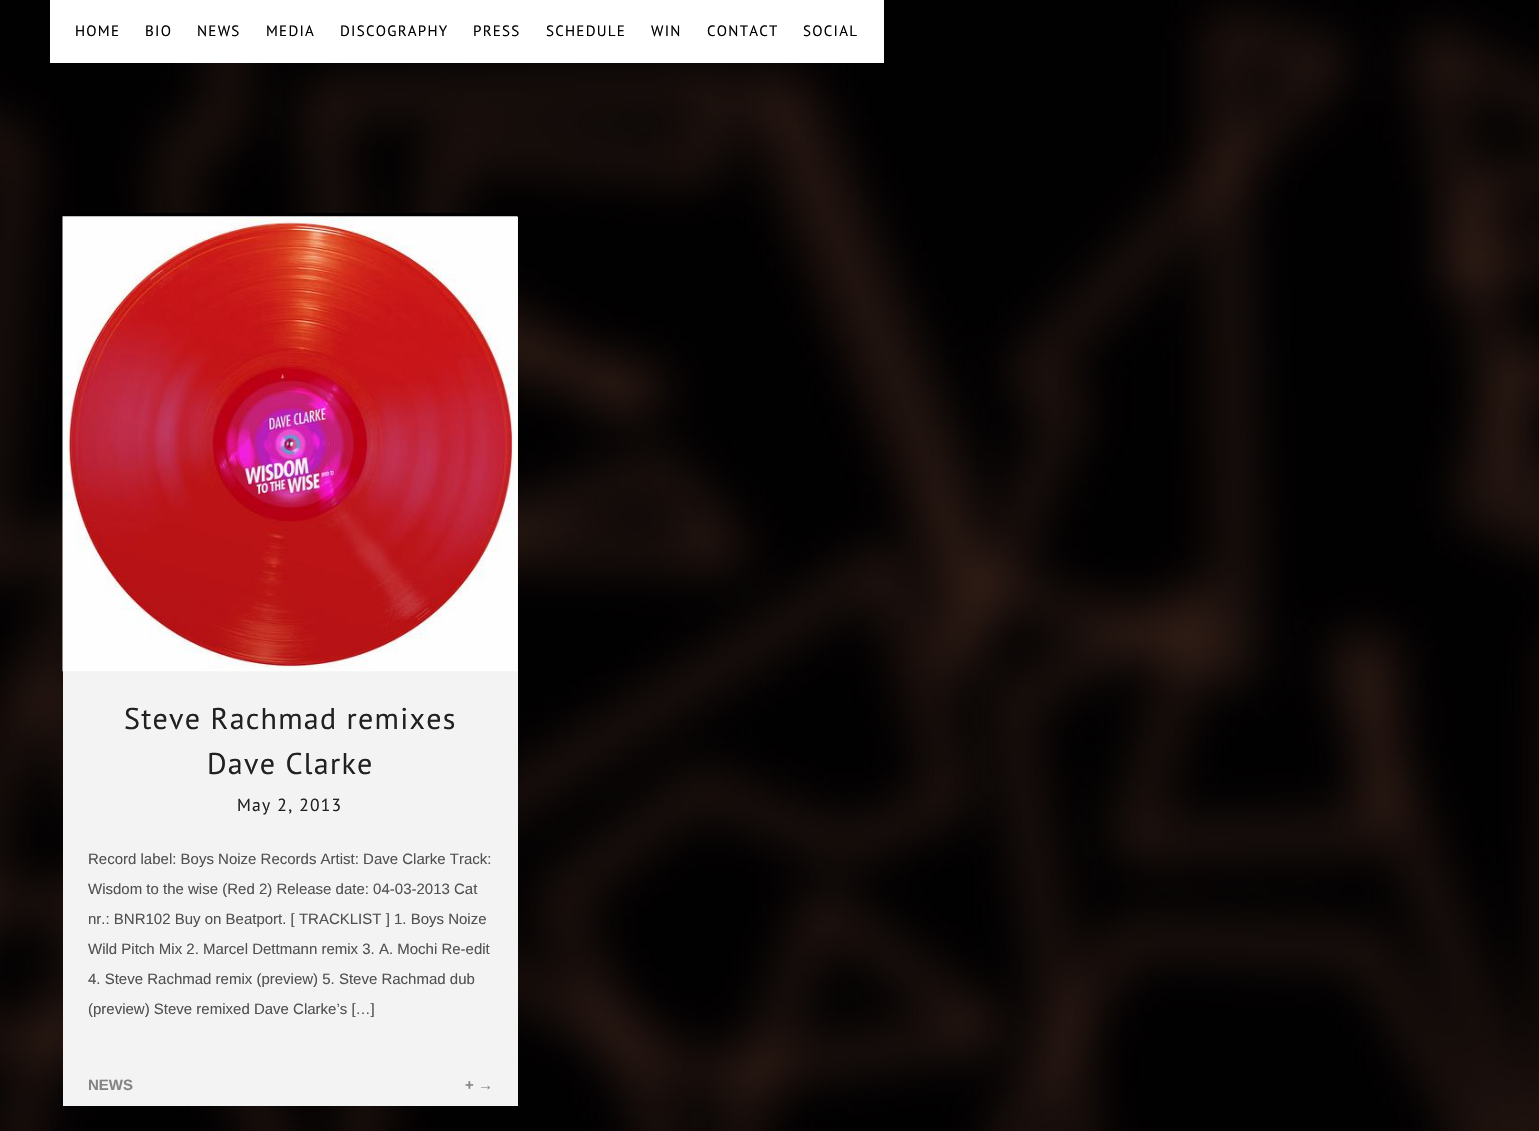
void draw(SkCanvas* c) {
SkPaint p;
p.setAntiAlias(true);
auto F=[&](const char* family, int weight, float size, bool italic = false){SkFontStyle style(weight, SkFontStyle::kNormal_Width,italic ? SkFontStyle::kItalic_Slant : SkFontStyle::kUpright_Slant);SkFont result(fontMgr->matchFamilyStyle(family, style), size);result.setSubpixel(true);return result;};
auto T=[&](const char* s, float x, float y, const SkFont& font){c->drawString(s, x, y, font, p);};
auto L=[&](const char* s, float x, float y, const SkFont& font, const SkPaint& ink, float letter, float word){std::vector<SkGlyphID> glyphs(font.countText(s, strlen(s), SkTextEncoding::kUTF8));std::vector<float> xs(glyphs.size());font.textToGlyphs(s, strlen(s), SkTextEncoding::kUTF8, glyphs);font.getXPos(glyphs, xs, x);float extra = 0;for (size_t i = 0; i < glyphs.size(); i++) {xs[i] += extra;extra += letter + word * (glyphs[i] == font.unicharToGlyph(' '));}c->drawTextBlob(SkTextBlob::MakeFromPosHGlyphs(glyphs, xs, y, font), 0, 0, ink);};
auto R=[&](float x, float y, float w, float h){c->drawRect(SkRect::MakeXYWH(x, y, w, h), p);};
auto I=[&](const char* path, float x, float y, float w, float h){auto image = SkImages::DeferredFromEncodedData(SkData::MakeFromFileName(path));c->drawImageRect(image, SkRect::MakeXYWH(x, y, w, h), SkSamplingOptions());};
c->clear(0xffffffff);
I("1.png",0,0,1539,1131);
p.setColor(0xffffffff);
R(50,0,834,63);
auto f1 = F("PT Sans",400,15);
p.setColor(0xff000000);
L("HOME",75,36,f1,p,1.25,0);
L("BIO",145,36,f1,p,1.25,0);
L("NEWS",197,36,f1,p,1.25,0);
L("MEDIA",266,36,f1,p,1.25,0);
L("DISCOGRAPHY",340,36,f1,p,1.25,0);
L("PRESS",473,36,f1,p,1.25,0);
L("SCHEDULE",546,36,f1,p,1.25,0);
L("WIN",651,36,f1,p,1.25,0);
L("CONTACT",707,36,f1,p,1.25,0);
L("SOCIAL",803,36,f1,p,1.25,0);
p.setColor(0xfff3f3f3);
R(63,217,455,889);
p.setColor(0xff000000);
R(63,213,455,4);
I("2.png",62,216,456,456);
auto f2 = F("PT Sans",400,30);
p.setColor(0xff212122);
L("Steve Rachmad remixes",124,729,f2,p,1.25,0);
L("Dave Clarke",207,774,f2,p,1.25,0);
auto f3 = F("PT Sans",400,17.5);
L("May 2, 2013",237,811,f3,p,1.25,0);
auto f4 = F("Liberation Sans",400,15);
p.setColor(0xff515151);
T("Record label: Boys Noize Records Artist: Dave Clarke Track:",88,864,f4);
T("Wisdom to the wise (Red 2) Release date: 04-03-2013 Cat",88,894,f4);
T("nr.: BNR102 Buy on Beatport. [ TRACKLIST ] 1. Boys Noize",88,924,f4);
T("Wild Pitch Mix 2. Marcel Dettmann remix 3. A. Mochi Re-edit",88,954,f4);
T("4. Steve Rachmad remix (preview) 5. Steve Rachmad dub",88,984,f4);
T("(preview) Steve remixed Dave Clarke’s […]",88,1014,f4);
auto f5 = F("Liberation Sans",700,15);
p.setColor(0xff848484);
T("NEWS",88,1090,f5);
T("+ →",465,1090,f5);
}
